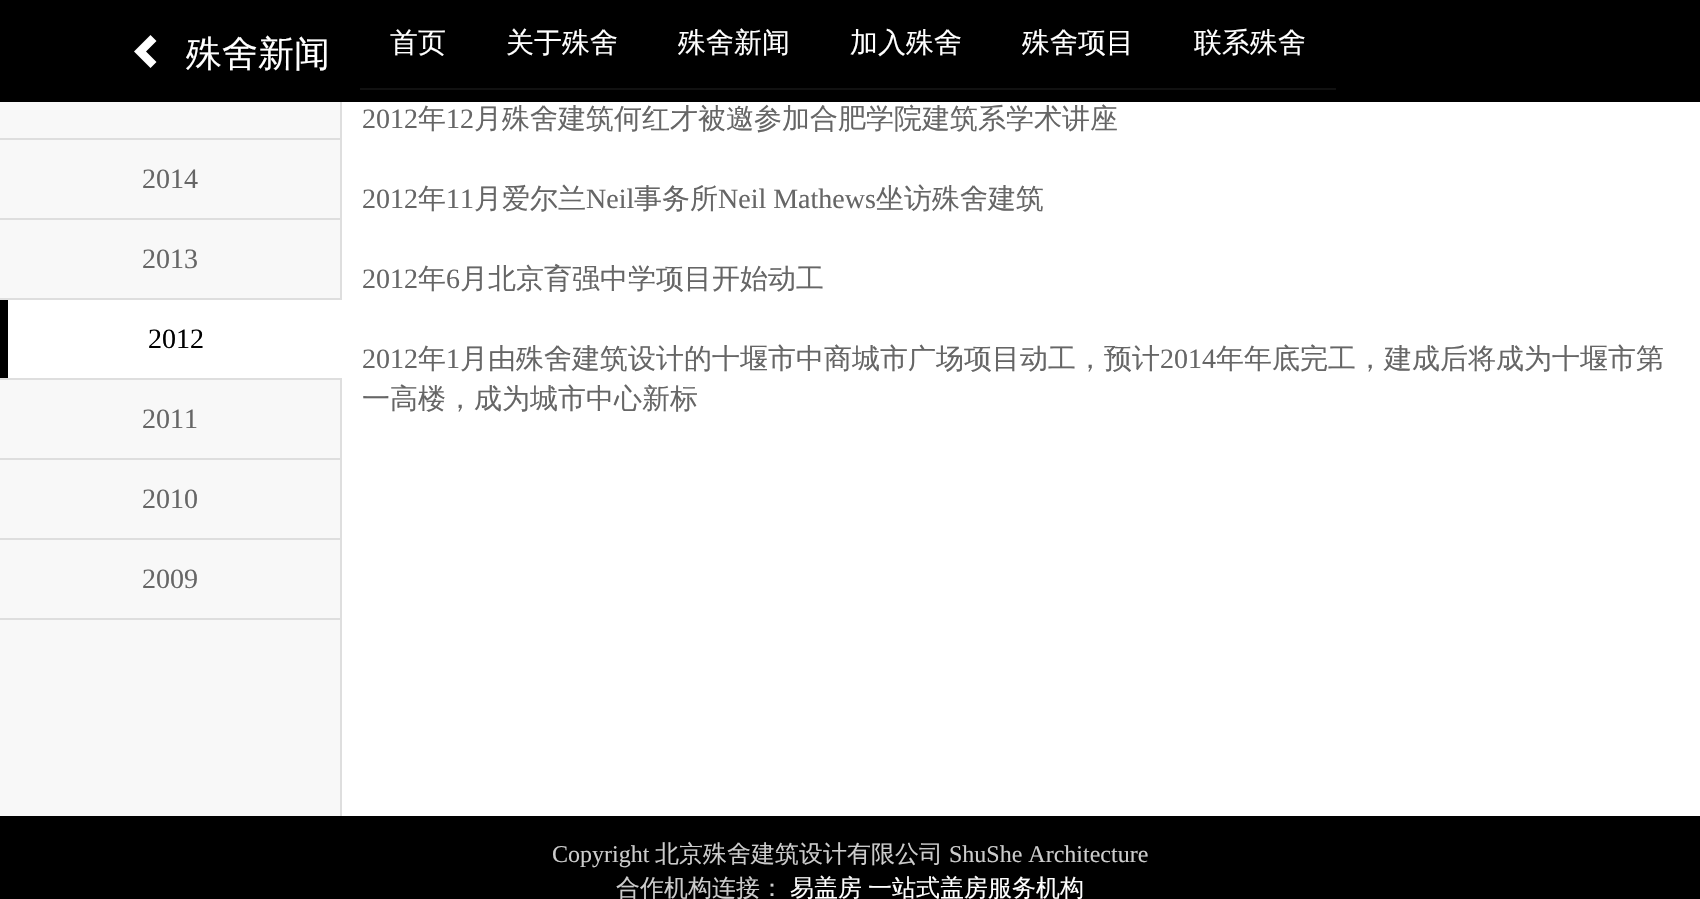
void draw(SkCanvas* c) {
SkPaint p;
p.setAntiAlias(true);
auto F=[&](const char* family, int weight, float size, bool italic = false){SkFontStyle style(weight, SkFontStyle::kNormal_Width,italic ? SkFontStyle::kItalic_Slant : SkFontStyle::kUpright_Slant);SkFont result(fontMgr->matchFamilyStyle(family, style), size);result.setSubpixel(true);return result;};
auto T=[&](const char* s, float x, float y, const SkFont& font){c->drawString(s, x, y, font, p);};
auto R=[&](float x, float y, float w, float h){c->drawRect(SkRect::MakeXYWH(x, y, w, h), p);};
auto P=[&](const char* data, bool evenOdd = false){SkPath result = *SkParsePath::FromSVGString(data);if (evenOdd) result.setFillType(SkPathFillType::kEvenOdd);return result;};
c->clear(0xfff8f8f8);
p.setColor(0xff000000);
R(0,0,1700,102);
p.setColor(0xffffffff);
c->drawPath(P("M156.5 41l-10.5 10.5l10.5 10.5l-6 6l-16.5-16.5l16.5-16.5z"),p);
auto f1 = F("WenQuanYi Zen Hei",500,36);
T("殊舍新闻",186,66,f1);
p.setColor(0xff111111);
R(360,88,976,2);
auto f2 = F("WenQuanYi Zen Hei",500,28);
p.setColor(0xffffffff);
T("首页",390,52,f2);
T("关于殊舍",506,52,f2);
T("殊舍新闻",678,52,f2);
T("加入殊舍",850,52,f2);
T("殊舍项目",1022,52,f2);
T("联系殊舍",1194,52,f2);
p.setColor(0xffdedede);
R(0,138,340,2);
R(0,218,340,2);
auto f3 = F("Liberation Serif",400,28);
p.setColor(0xff666666);
T("2014",142,188,f3);
p.setColor(0xffdedede);
R(0,298,340,2);
p.setColor(0xff666666);
T("2013",142,268,f3);
p.setColor(0xffdedede);
R(0,378,340,2);
R(340,102,2,714);
p.setColor(0xffffffff);
R(8,300,334,78);
p.setColor(0xff000000);
R(0,300,8,78);
T("2012",148,348,f3);
p.setColor(0xffdedede);
R(0,458,340,2);
p.setColor(0xff666666);
T("2011",142,428,f3);
p.setColor(0xffdedede);
R(0,538,340,2);
p.setColor(0xff666666);
T("2010",142,508,f3);
p.setColor(0xffdedede);
R(0,618,340,2);
p.setColor(0xff666666);
T("2009",142,588,f3);
p.setColor(0xffffffff);
R(342,102,1358,714);
p.setColor(0xff666666);
T("2012",362,128,f3);
T("年",418,128,f2);
T("12",446,128,f3);
T("月殊舍建筑何红才被邀参加合肥学院建筑系学术讲座",474,128,f2);
T("2012",362,208,f3);
T("年",418,208,f2);
T("11",446,208,f3);
T("月爱尔兰",474,208,f2);
T("Neil",586,208,f3);
T("事务所",634,208,f2);
T("Neil Mathews",718,208,f3);
T("坐访殊舍建筑",876,208,f2);
T("2012",362,288,f3);
T("年",418,288,f2);
T("6",446,288,f3);
T("月北京育强中学项目开始动工",460,288,f2);
T("2012",362,368,f3);
T("年",418,368,f2);
T("1",446,368,f3);
T("月由殊舍建筑设计的十堰市中商城市广场项目动工，预计",460,368,f2);
T("2014",1160,368,f3);
T("年年底完工，建成后将成为十堰市第",1216,368,f2);
T("一高楼，成为城市中心新标",362,408,f2);
p.setColor(0xff000000);
R(0,816,1700,83);
auto f4 = F("Liberation Serif",400,24);
p.setColor(0xffcccccc);
T("Copyright",552,862,f4);
auto f5 = F("WenQuanYi Zen Hei",500,24);
T("北京殊舍建筑设计有限公司",655,862,f5);
T("ShuShe Architecture",949,862,f4);
T("合作机构连接：",616,896,f5);
p.setColor(0xffffffff);
T("易盖房",790,896,f5);
T("一站式盖房服务机构",868,896,f5);
}
